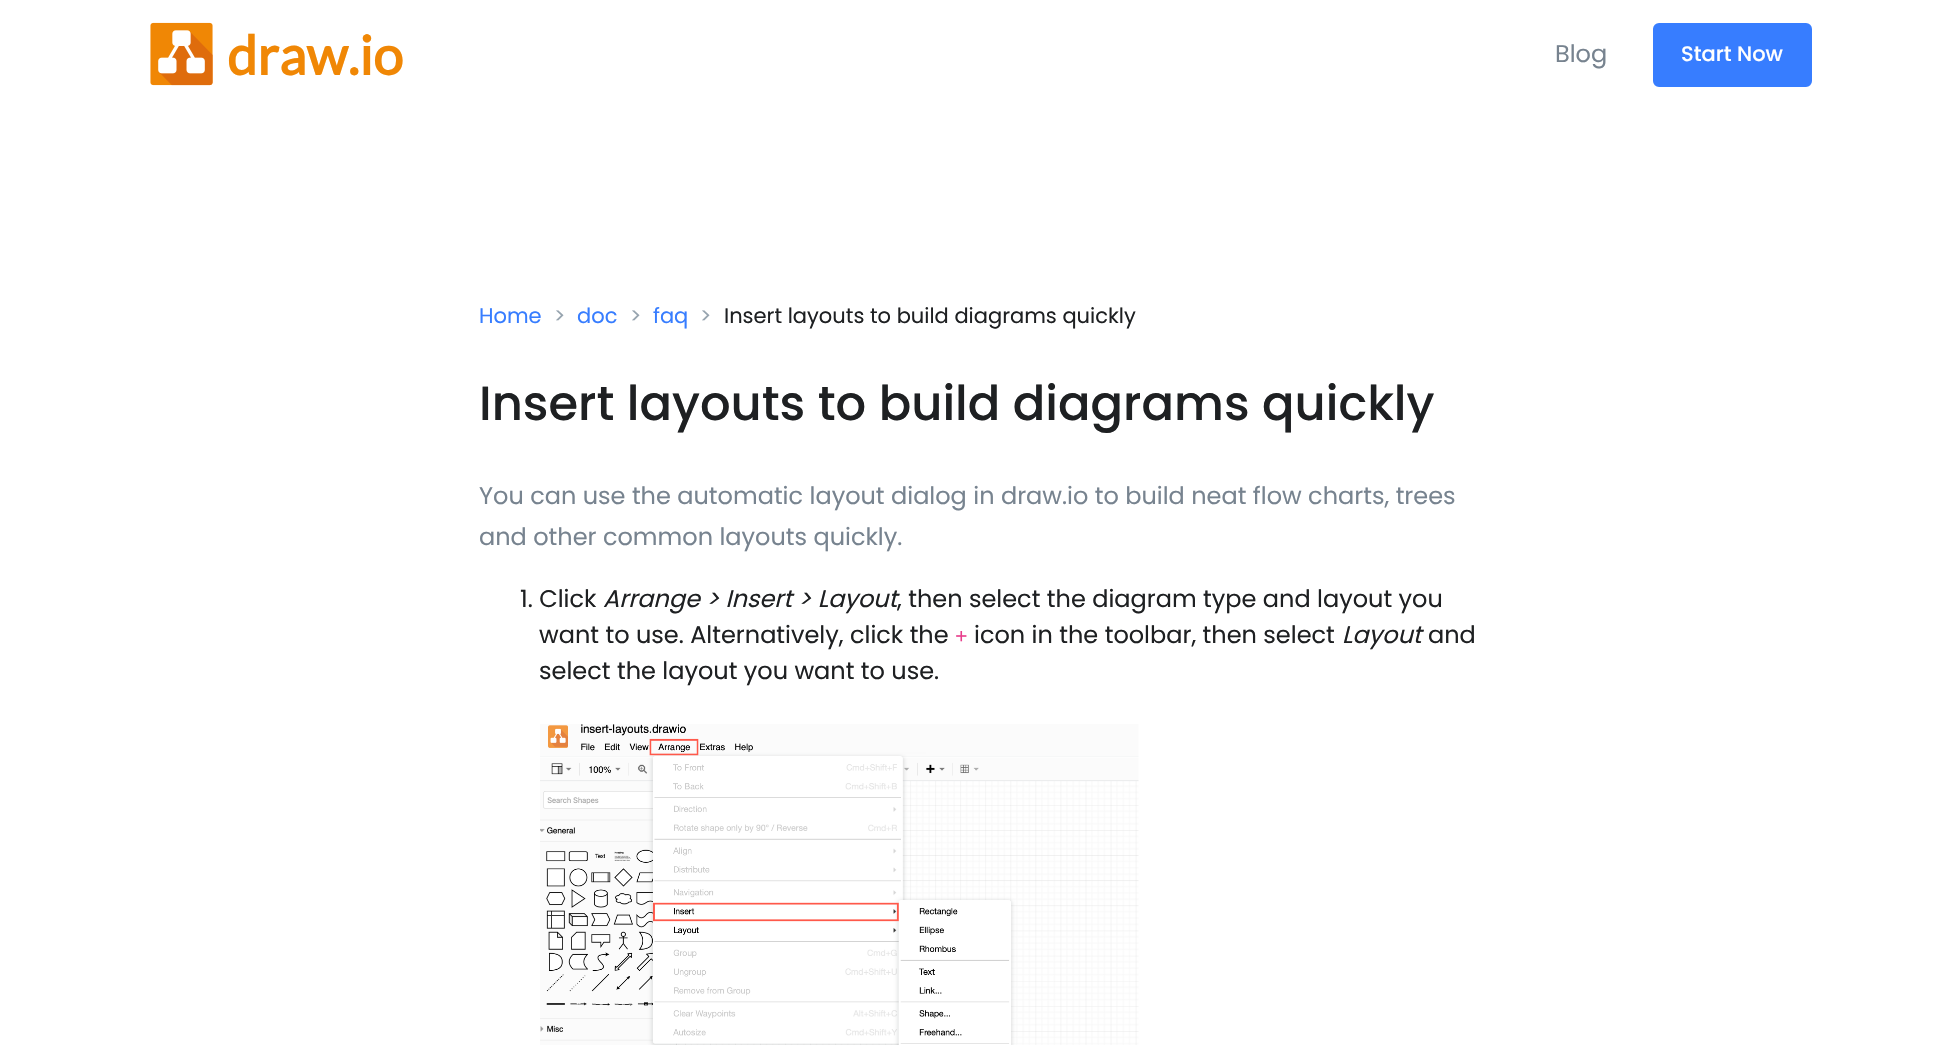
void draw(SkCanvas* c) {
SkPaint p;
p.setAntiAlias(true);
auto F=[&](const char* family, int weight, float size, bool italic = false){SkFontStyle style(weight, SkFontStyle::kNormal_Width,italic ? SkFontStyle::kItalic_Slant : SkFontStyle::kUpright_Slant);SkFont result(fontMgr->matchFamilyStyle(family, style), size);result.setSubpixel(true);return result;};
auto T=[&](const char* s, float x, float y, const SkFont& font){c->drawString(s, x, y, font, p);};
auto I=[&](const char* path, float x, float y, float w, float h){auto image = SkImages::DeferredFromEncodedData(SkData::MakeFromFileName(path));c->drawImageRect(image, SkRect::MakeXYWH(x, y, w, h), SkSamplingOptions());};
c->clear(0xffffffff);
I("1.png",150,22,63,64);
auto f1 = F("Lato",700,54);
p.setColor(0xfff08705);
T("draw.io",227,75,f1);
auto f2 = F("Poppins",400,24);
p.setColor(0xff77838f);
T("Blog",1555,62,f2);
p.setColor(0xff377dff);
c->drawRoundRect(SkRect::MakeXYWH(1654,24,157,62),5,5,p);
p.setStroke(true);
p.setStrokeWidth(2);
c->drawRoundRect(SkRect::MakeXYWH(1654,24,157,62),5,5,p);
auto f3 = F("Poppins",500,21);
p.setStroke(false);
p.setColor(0xffffffff);
T("Start Now",1681,61,f3);
auto f4 = F("Poppins",400,21);
p.setColor(0xff377dff);
T("Home",479,323,f4);
p.setColor(0xff97a4af);
T(">",554,323,f4);
p.setColor(0xff377dff);
T("doc",577,323,f4);
p.setColor(0xff97a4af);
T(">",630,323,f4);
p.setColor(0xff377dff);
T("faq",653,323,f4);
p.setColor(0xff97a4af);
T(">",700,323,f4);
p.setColor(0xff1e2022);
T("Insert layouts to build diagrams quickly",724,323,f4);
auto f5 = F("Poppins",500,48);
T("Insert layouts to build diagrams quickly",479,420,f5);
p.setColor(0xff77838f);
T("You can use the automatic layout dialog in draw.io to build neat flow charts, trees",479,504,f2);
T("and other common layouts quickly.",479,545,f2);
p.setColor(0xff1e2022);
T("1. Click",520,607,f2);
auto f6 = F("Poppins",400,24,true);
T("Arrange > Insert > Layout",603,607,f6);
T(", then select the diagram type and layout you",897,607,f2);
T("want to use. Alternatively, click the",539,643,f2);
auto f7 = F("Liberation Mono",400,21);
p.setColor(0xffe83e8c);
T("+",955,643,f7);
p.setColor(0xff1e2022);
T("icon in the toolbar, then select",974,643,f2);
T("Layout",1342,643,f6);
T("and",1428,643,f2);
T("select the layout you want to use.",539,679,f2);
I("2.png",540,724,599,321);
}
